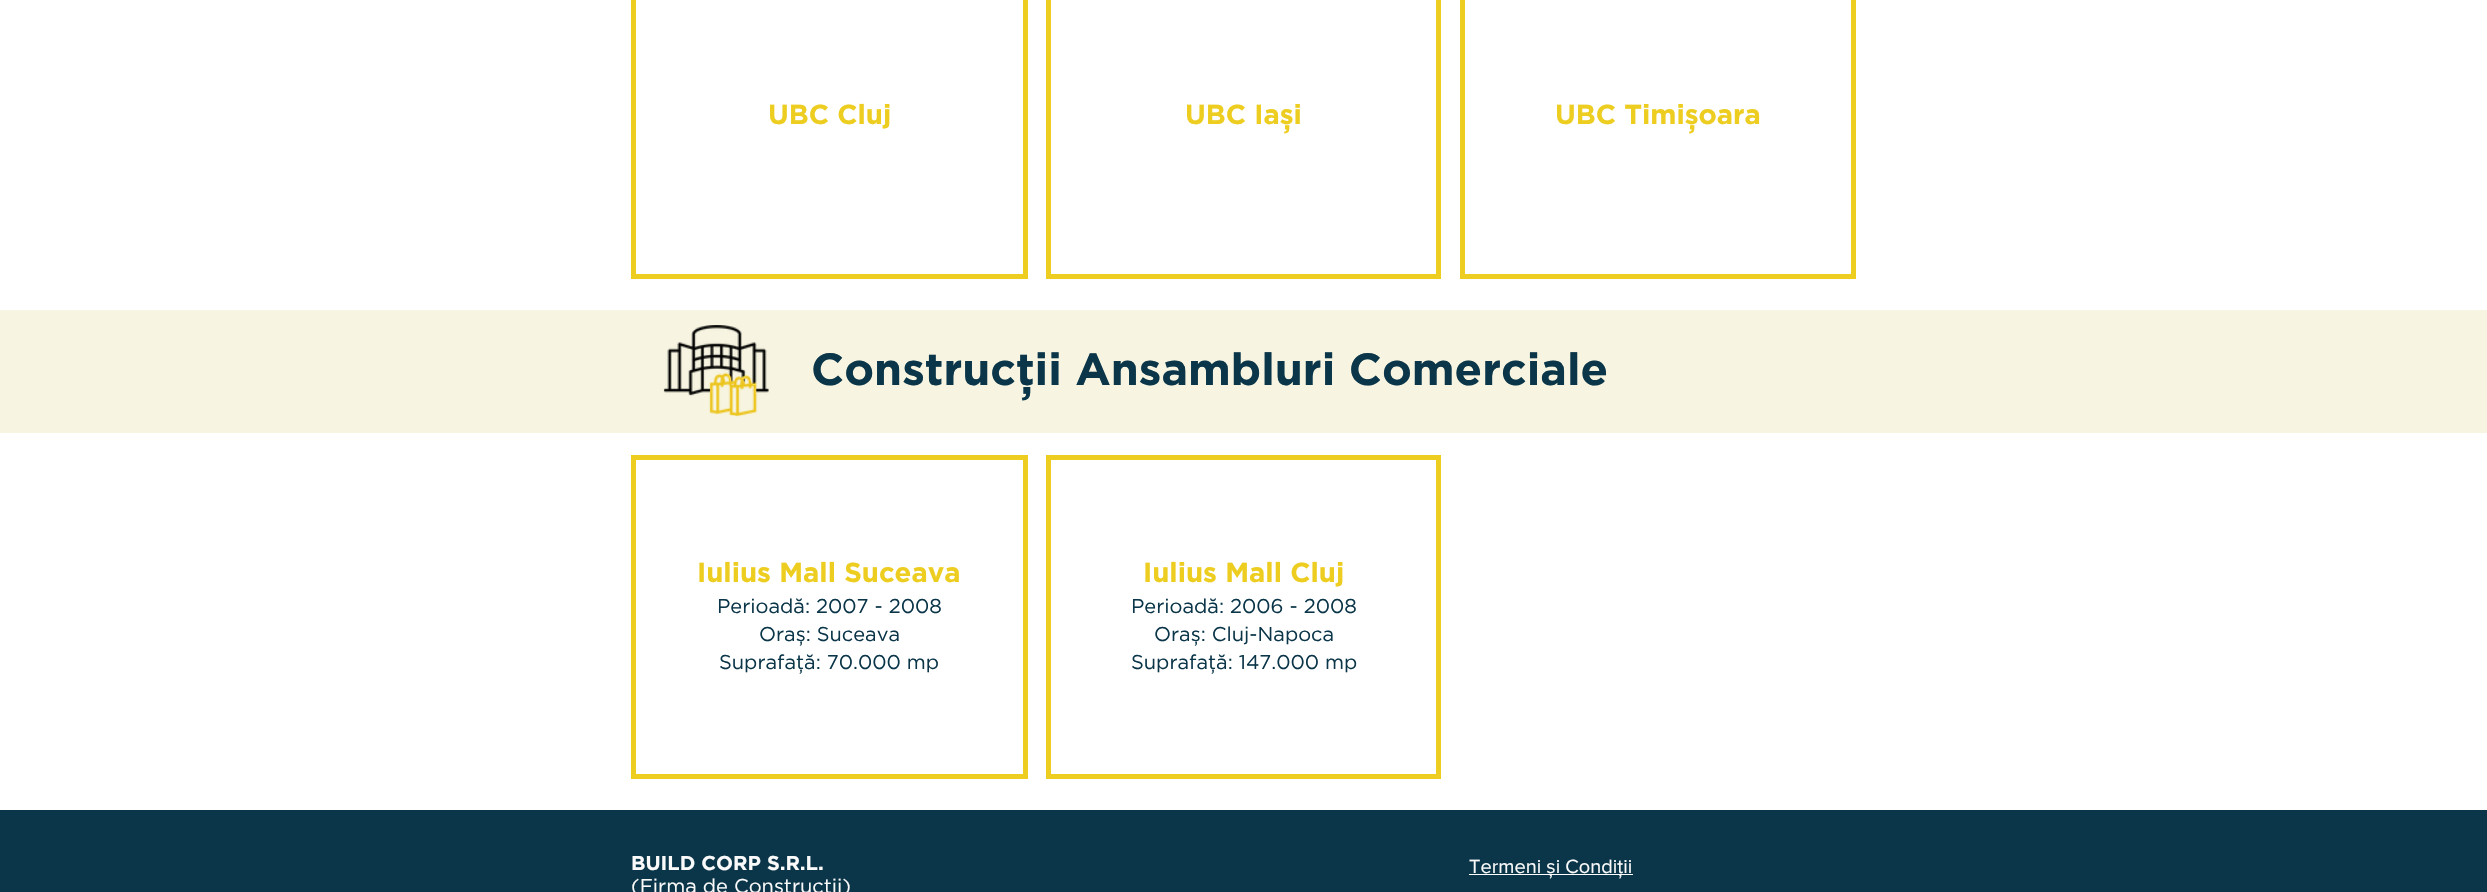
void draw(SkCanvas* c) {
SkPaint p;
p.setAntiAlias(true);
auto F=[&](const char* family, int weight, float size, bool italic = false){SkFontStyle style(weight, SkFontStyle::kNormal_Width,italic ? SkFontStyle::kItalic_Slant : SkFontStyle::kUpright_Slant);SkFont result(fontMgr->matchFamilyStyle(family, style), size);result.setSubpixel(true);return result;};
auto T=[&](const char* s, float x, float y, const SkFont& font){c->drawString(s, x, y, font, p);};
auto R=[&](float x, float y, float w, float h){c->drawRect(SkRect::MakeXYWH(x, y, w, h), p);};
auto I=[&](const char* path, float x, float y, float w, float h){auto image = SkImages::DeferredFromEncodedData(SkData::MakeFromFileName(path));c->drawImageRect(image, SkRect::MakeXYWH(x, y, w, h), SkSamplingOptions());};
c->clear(0xffffffff);
p.setStroke(true);
p.setStrokeWidth(5);
p.setColor(0xffedcd1f);
c->drawRect(SkRect::MakeXYWH(633.5,-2.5,392,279),p);
auto f1 = F("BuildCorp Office",700,27.5);
p.setStroke(false);
T("UBC Cluj",768,124,f1);
p.setStroke(true);
c->drawRect(SkRect::MakeXYWH(1048.5,-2.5,390,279),p);
p.setStroke(false);
T("UBC Iași",1185,124,f1);
p.setStroke(true);
c->drawRect(SkRect::MakeXYWH(1462.5,-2.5,391,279),p);
p.setStroke(false);
T("UBC Timișoara",1555,124,f1);
p.setColor(0xfff7f5e1);
R(0,310,2487,123);
I("1.png",663,325,106,92);
auto f2 = F("BuildCorp Office",700,45);
p.setColor(0xff0b3649);
T("Construcții Ansambluri Comerciale",811,385,f2);
p.setStroke(true);
p.setColor(0xffedcd1f);
c->drawRect(SkRect::MakeXYWH(633.5,457.5,392,319),p);
p.setStroke(false);
T("Iulius Mall Suceava",697,582,f1);
auto f3 = F("BuildCorp Office",500,20);
p.setColor(0xff0b3649);
T("Perioadă: 2007 - 2008",717,613,f3);
T("Oraș: Suceava",759,641,f3);
T("Suprafață: 70.000 mp",719,669,f3);
p.setStroke(true);
p.setColor(0xffedcd1f);
c->drawRect(SkRect::MakeXYWH(1048.5,457.5,390,319),p);
p.setStroke(false);
T("Iulius Mall Cluj",1143,582,f1);
p.setColor(0xff0b3649);
T("Perioadă: 2006 - 2008",1131,613,f3);
T("Oraș: Cluj-Napoca",1154,641,f3);
T("Suprafață: 147.000 mp",1131,669,f3);
R(0,810,2487,82);
auto f4 = F("BuildCorp Office",700,20);
p.setColor(0xfffafafa);
T("BUILD CORP S.R.L.",631,870,f4);
T("(Firma de Constructii)",631,893,f3);
p.setColor(0xffffffff);
R(1469,874,164,1);
auto f5 = F("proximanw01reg",400,20);
p.setColor(0xfffafafa);
T("Termeni și Condiții",1469,873,f5);
}
